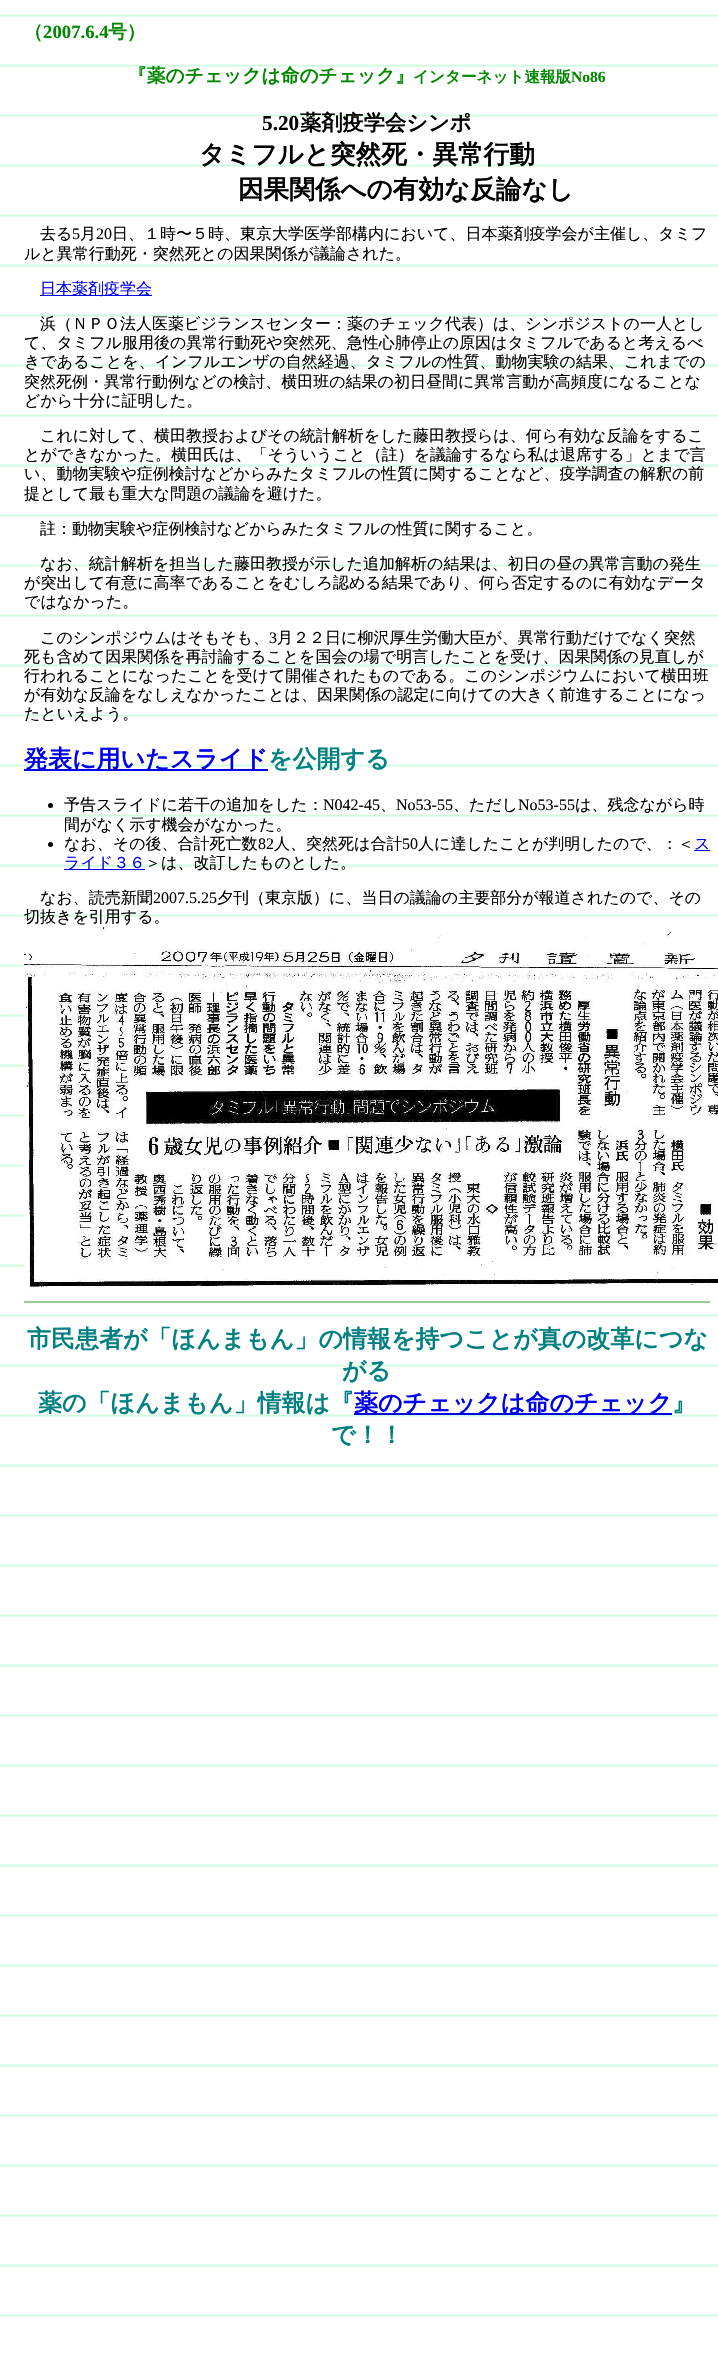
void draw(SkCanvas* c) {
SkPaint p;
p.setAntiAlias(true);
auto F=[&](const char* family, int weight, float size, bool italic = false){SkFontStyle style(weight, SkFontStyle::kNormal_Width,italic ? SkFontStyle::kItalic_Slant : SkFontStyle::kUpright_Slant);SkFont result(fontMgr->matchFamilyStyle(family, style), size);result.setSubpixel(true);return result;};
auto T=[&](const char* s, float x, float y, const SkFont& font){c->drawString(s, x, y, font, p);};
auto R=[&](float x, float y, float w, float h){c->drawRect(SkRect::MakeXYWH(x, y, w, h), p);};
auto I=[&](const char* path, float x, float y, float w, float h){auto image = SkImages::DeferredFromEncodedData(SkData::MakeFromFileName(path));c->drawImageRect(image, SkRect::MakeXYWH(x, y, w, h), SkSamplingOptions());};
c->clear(0xffffffff);
I("1.png",0,14,718,2303);
auto f1 = F("WenQuanYi Zen Hei",700,18.75);
p.setColor(0xff008800);
T("（",24,38,f1);
auto f2 = F("Liberation Serif",700,18.75);
T("2007.6.4",43,38,f2);
T("号）",108,38,f1);
T("『薬のチェックは命のチェック』",128,82,f1);
auto f3 = F("WenQuanYi Zen Hei",700,15.6);
T("インターネット速報版",413,82,f3);
auto f4 = F("Liberation Serif",700,15.6);
T("No86",571,82,f4);
auto f5 = F("Liberation Serif",700,21.25);
p.setColor(0xff000000);
T("5.20",262,130,f5);
auto f6 = F("WenQuanYi Zen Hei",700,21.25);
T("薬剤疫学会シンポ",300,130,f6);
auto f7 = F("WenQuanYi Zen Hei",700,25.6);
T("タミフルと突然死・異常行動",199,163,f7);
T("因果関係への有効な反論なし",238,198,f7);
auto f8 = F("WenQuanYi Zen Hei",500,16);
T("去る",40,239,f8);
auto f9 = F("Liberation Serif",400,16);
T("5",72,239,f9);
T("月",80,239,f8);
T("20",96,239,f9);
T("日、１時〜５時、東京大学医学部構内において、日本薬剤疫学会が主催し、タミフ",112,239,f8);
T("ルと異常行動死・突然死との因果関係が議論された。",24,259,f8);
p.setColor(0xff0000ee);
R(40,295,112,1);
T("日本薬剤疫学会",40,294,f8);
p.setColor(0xff000000);
T("浜（ＮＰＯ法人医薬ビジランスセンター：薬のチェック代表）は、シンポジストの一人とし",40,329,f8);
T("て、タミフル服用後の異常行動死や突然死、急性心肺停止の原因はタミフルであると考えるべ",24,348,f8);
T("きであることを、インフルエンザの自然経過、タミフルの性質、動物実験の結果、これまでの",24,367,f8);
T("突然死例・異常行動例などの検討、横田班の結果の初日昼間に異常言動が高頻度になることな",24,387,f8);
T("どから十分に証明した。",24,406,f8);
T("これに対して、横田教授およびその統計解析をした藤田教授らは、何ら有効な反論をするこ",40,441,f8);
T("とができなかった。横田氏は、「そういうこと（註）を議論するなら私は退席する」とまで言",24,460,f8);
T("い、動物実験や症例検討などからみたタミフルの性質に関することなど、疫学調査の解釈の前",24,479,f8);
T("提として最も重大な問題の議論を避けた。",24,499,f8);
T("註：動物実験や症例検討などからみたタミフルの性質に関すること。",40,534,f8);
T("なお、統計解析を担当した藤田教授が示した追加解析の結果は、初日の昼の異常言動の発生",40,569,f8);
T("が突出して有意に高率であることをむしろ認める結果であり、何ら否定するのに有効なデータ",24,588,f8);
T("ではなかった。",24,607,f8);
T("このシンポジウムはそもそも、",40,643,f8);
T("3",269,643,f9);
T("月２２日に柳沢厚生労働大臣が、異常行動だけでなく突然",277,643,f8);
T("死も含めて因果関係を再討論することを国会の場で明言したことを受け、因果関係の見直しが",24,662,f8);
T("行われることになったことを受けて開催されたものである。このシンポジウムにおいて横田班",24,681,f8);
T("が有効な反論をなしえなかったことは、因果関係の認定に向けての大きく前進することになっ",24,700,f8);
T("たといえよう。",24,719,f8);
p.setColor(0xff0000ee);
R(24,769,244,2);
auto f10 = F("WenQuanYi Zen Hei",700,24);
T("発表に用いたスライド",24,767,f10);
p.setColor(0xff008080);
T("を公開する",268,767,f10);
p.setColor(0xff000000);
c->drawCircle(50.5,805.5,2.5,p);
T("予告スライドに若干の追加をした：",64,810,f8);
T("N042-45",323,810,f9);
T("No53-55",396,810,f9);
T("、ただし",453,810,f8);
T("No53-55",518,810,f9);
T("は、残念ながら時",575,810,f8);
T("、",380,810,f8);
T("間がなく示す機会がなかった。",64,830,f8);
c->drawCircle(50.5,844.5,2.5,p);
T("なお、その後、合計死亡数",64,849,f8);
T("82",258,849,f9);
T("人、突然死は合計",274,849,f8);
T("50",402,849,f9);
T("人に達したことが判明したので、：＜",418,849,f8);
p.setColor(0xff0000ee);
T("ス",694,849,f8);
R(694,850,16,1);
R(64,869,81,1);
T("ライド３６",64,868,f8);
p.setColor(0xff000000);
T("＞は、改訂したものとした。",145,868,f8);
T("なお、読売新聞",40,903,f8);
T("2007.5.25",153,903,f9);
T("夕刊（東京版）に、当日の議論の主要部分が報道されたので、その",217,903,f8);
T("切抜きを引用する。",24,922,f8);
I("2.png",24,927,694,363);
p.setColor(0xff99cc99);
R(24,1301,686,2);
p.setColor(0xff008080);
T("市民患者が「ほんまもん」の情報を持つことが真の改革につな",27,1347,f10);
T("がる",342,1379,f10);
T("薬の「ほんまもん」情報は『",38,1411,f10);
p.setColor(0xff0000ee);
R(354,1413,318,2);
T("薬のチェックは命のチェック",354,1411,f10);
p.setColor(0xff008080);
T("』",672,1411,f10);
T("で！！",331,1443,f10);
}
